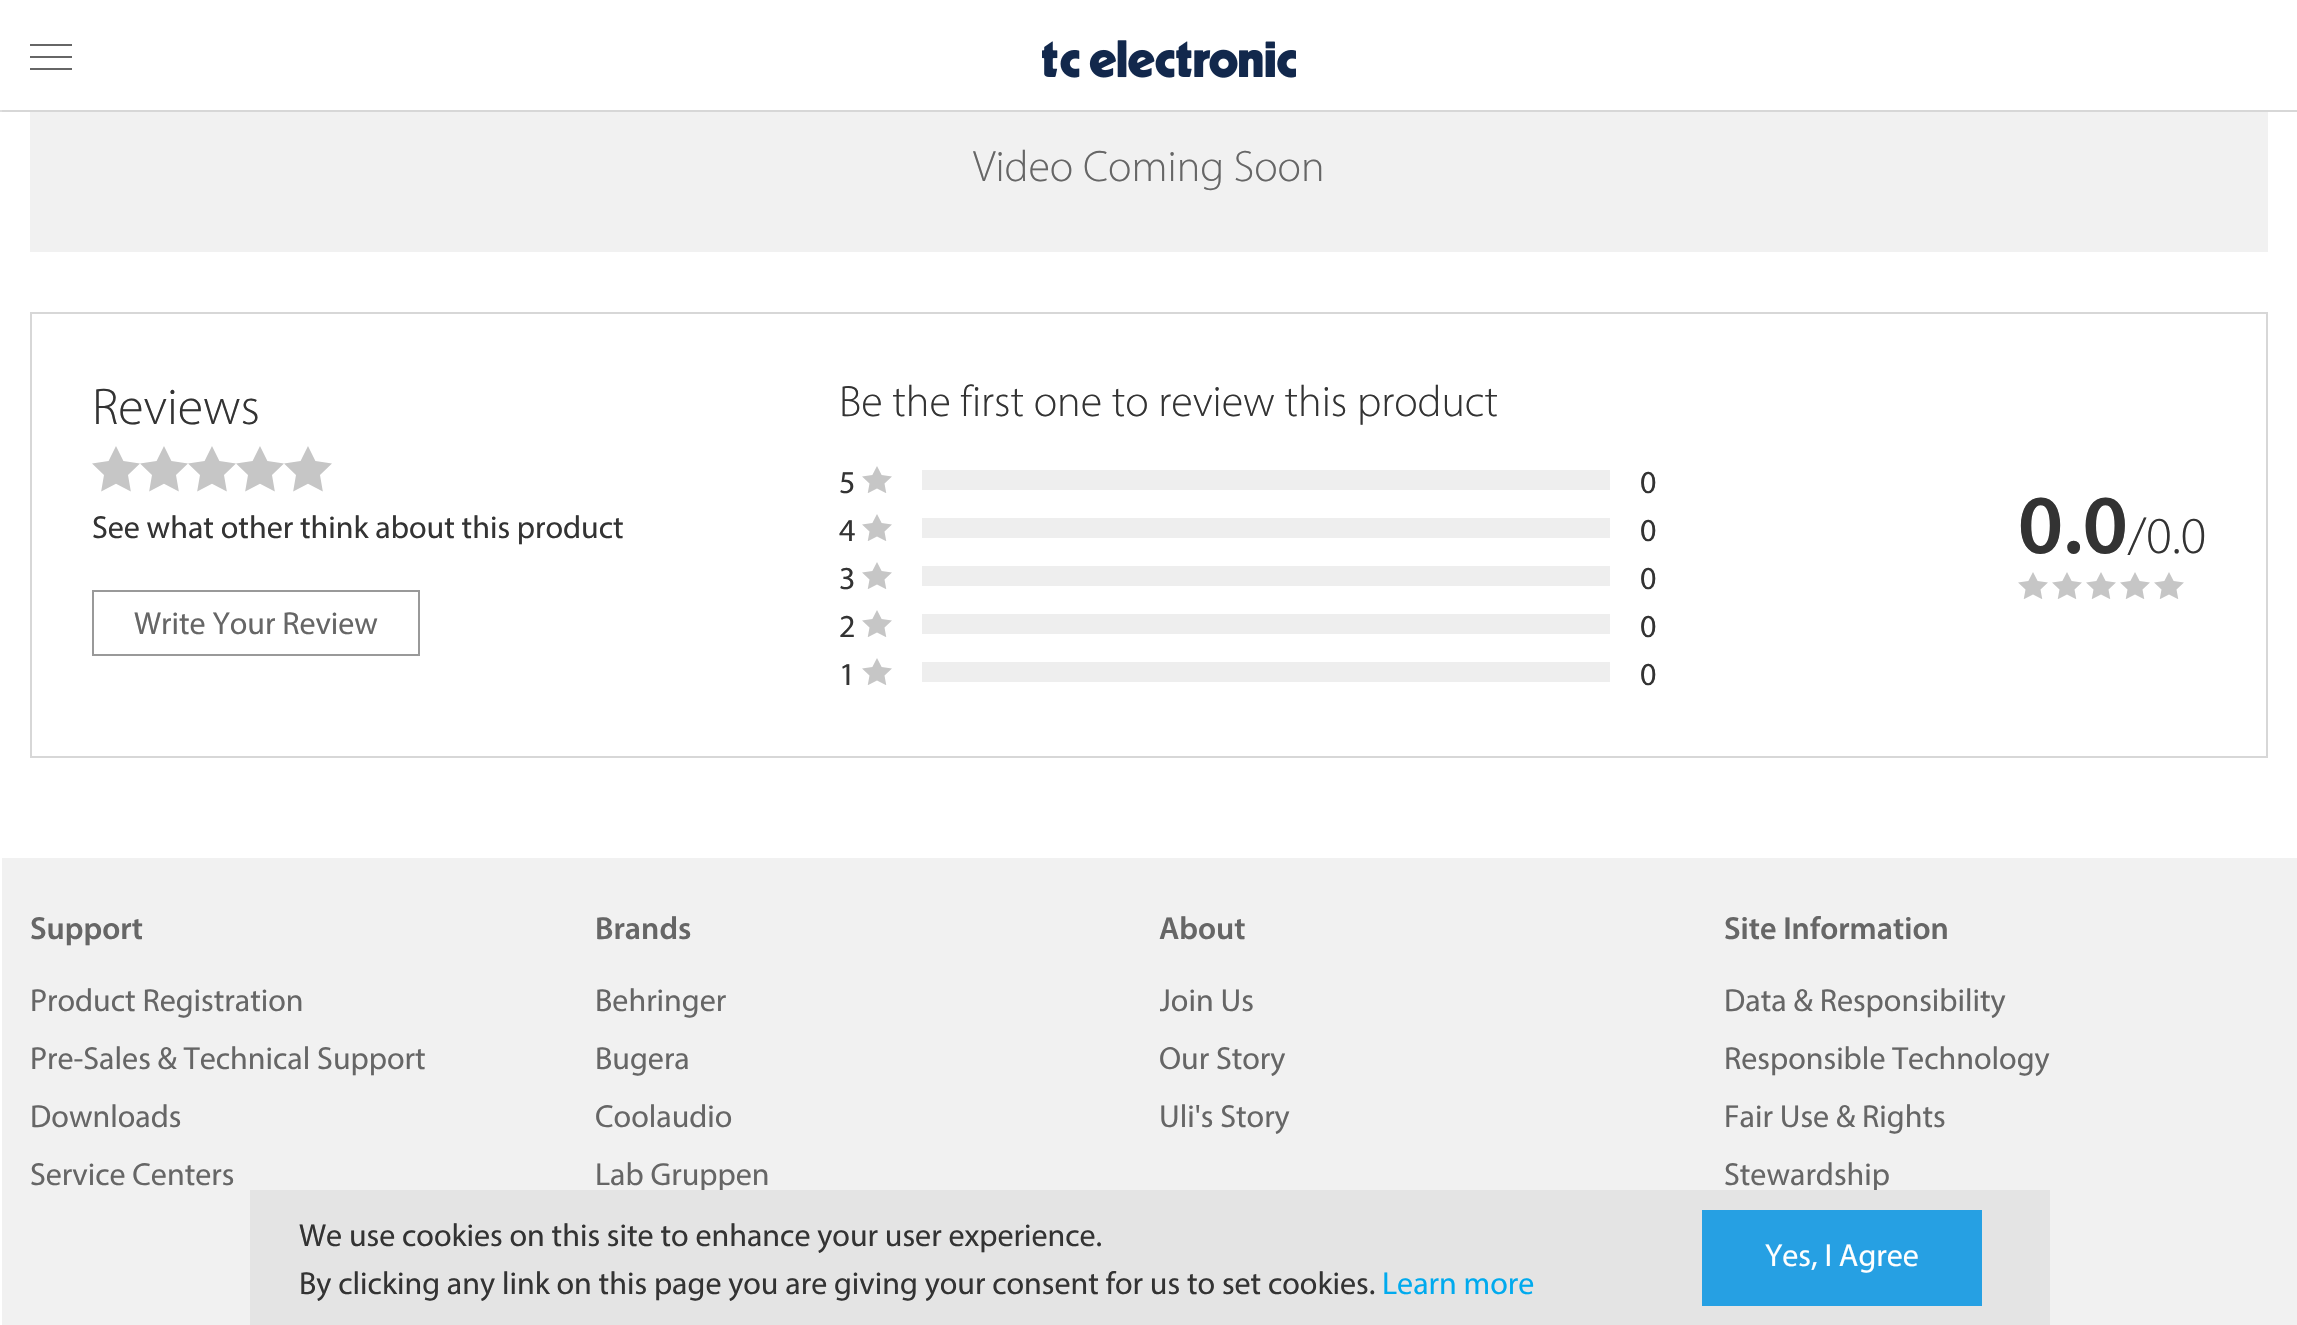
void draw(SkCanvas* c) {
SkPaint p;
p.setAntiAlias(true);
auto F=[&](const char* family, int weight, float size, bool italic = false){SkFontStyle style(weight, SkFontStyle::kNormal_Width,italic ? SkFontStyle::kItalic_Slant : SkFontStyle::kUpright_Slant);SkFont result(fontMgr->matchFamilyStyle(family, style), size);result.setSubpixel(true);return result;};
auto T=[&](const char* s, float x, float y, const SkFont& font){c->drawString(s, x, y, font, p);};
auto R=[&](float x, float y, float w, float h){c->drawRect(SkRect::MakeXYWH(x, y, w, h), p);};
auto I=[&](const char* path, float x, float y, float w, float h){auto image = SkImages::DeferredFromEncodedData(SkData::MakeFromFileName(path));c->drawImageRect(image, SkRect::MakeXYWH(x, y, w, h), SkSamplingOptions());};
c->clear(0xffffffff);
p.setColor(0xffd7d7d7);
R(0,110,2297,2);
p.setColor(0xff666666);
R(30,44,42,2);
R(30,56,42,2);
R(30,68,42,2);
I("1.png",1042,40,254,38);
p.setColor(0xffffffff);
R(0,110,2,2);
p.setColor(0xffdedede);
R(0,110,2,2);
p.setColor(0xfff1f1f1);
R(30,112,2238,140);
auto f1 = F("Myriad",300,44);
p.setColor(0xff666666);
T("Video Coming Soon",973,181,f1);
p.setStroke(true);
p.setStrokeWidth(2);
p.setColor(0xffd7d7d7);
c->drawRect(SkRect::MakeXYWH(31,313,2236,444),p);
auto f2 = F("Myriad",300,52);
p.setStroke(false);
p.setColor(0xff333333);
T("Reviews",92,424,f2);
I("2.png",92,446,48,46);
I("2.png",140,446,48,46);
I("2.png",188,446,48,46);
I("2.png",236,446,48,46);
I("2.png",284,446,48,46);
auto f3 = F("Myriad",400,32);
T("See what other think about this product",92,538,f3);
T("Be the first one to review this product",839,416,f1);
T("5",839,493,f3);
I("3.png",862,466,30,27);
p.setColor(0xffeeeeee);
R(922,470,688,20);
p.setColor(0xff333333);
T("0",1640,493,f3);
T("4",839,541,f3);
I("3.png",862,514,30,27);
p.setColor(0xffeeeeee);
R(922,518,688,20);
p.setColor(0xff333333);
T("0",1640,541,f3);
T("3",839,589,f3);
I("3.png",862,562,30,27);
p.setColor(0xffeeeeee);
R(922,566,688,20);
p.setColor(0xff333333);
T("0",1640,589,f3);
T("2",839,637,f3);
I("3.png",862,610,30,27);
p.setColor(0xffeeeeee);
R(922,614,688,20);
p.setColor(0xff333333);
T("0",1640,637,f3);
T("1",839,685,f3);
I("3.png",862,658,30,27);
p.setColor(0xffeeeeee);
R(922,662,688,20);
p.setColor(0xff333333);
T("0",1640,685,f3);
auto f4 = F("Myriad",600,84);
T("0.0",2018,553,f4);
T("/0.0",2128,553,f2);
I("3.png",2018,572,30,27);
I("3.png",2052,572,30,27);
I("3.png",2086,572,30,27);
I("3.png",2120,572,30,27);
I("3.png",2154,572,30,27);
p.setStroke(true);
p.setColor(0xff999999);
c->drawRect(SkRect::MakeXYWH(93,591,326,64),p);
p.setStroke(false);
p.setColor(0xff666666);
T("Write Your Review",134,634,f3);
p.setColor(0xfff1f1f1);
R(2,858,2295,467);
auto f5 = F("Myriad",600,32);
p.setColor(0xff666666);
T("Support",30,939,f5);
T("Product Registration",30,1011,f3);
T("Pre-Sales & Technical Support",30,1069,f3);
T("Downloads",30,1127,f3);
T("Service Centers",30,1185,f3);
T("Brands",595,939,f5);
T("Behringer",595,1011,f3);
T("Bugera",595,1069,f3);
T("Coolaudio",595,1127,f3);
T("Lab Gruppen",595,1185,f3);
T("About",1159,939,f5);
c->save();
c->clipRect(SkRect::MakeXYWH(1160,964,544,184));
T("Join Us",1159,1011,f3);
c->restore();
T("Our Story",1159,1069,f3);
T("Uli's Story",1159,1127,f3);
T("Site Information",1724,939,f5);
T("Data & Responsibility",1724,1011,f3);
T("Responsible Technology",1724,1069,f3);
T("Fair Use & Rights",1724,1127,f3);
T("Stewardship",1724,1185,f3);
p.setColor(0xffe4e4e4);
R(250,1190,1800,135);
p.setColor(0xff333333);
T("We use cookies on this site to enhance your user experience.",299,1246,f3);
T("By clicking any link on this page you are giving your consent for us to set cookies.",299,1294,f3);
p.setColor(0xff00aaee);
T("Learn more",1382,1294,f3);
p.setColor(0xff26a0e3);
R(1702,1210,280,96);
p.setColor(0xffffffff);
T("Yes, I Agree",1765,1266,f3);
}
